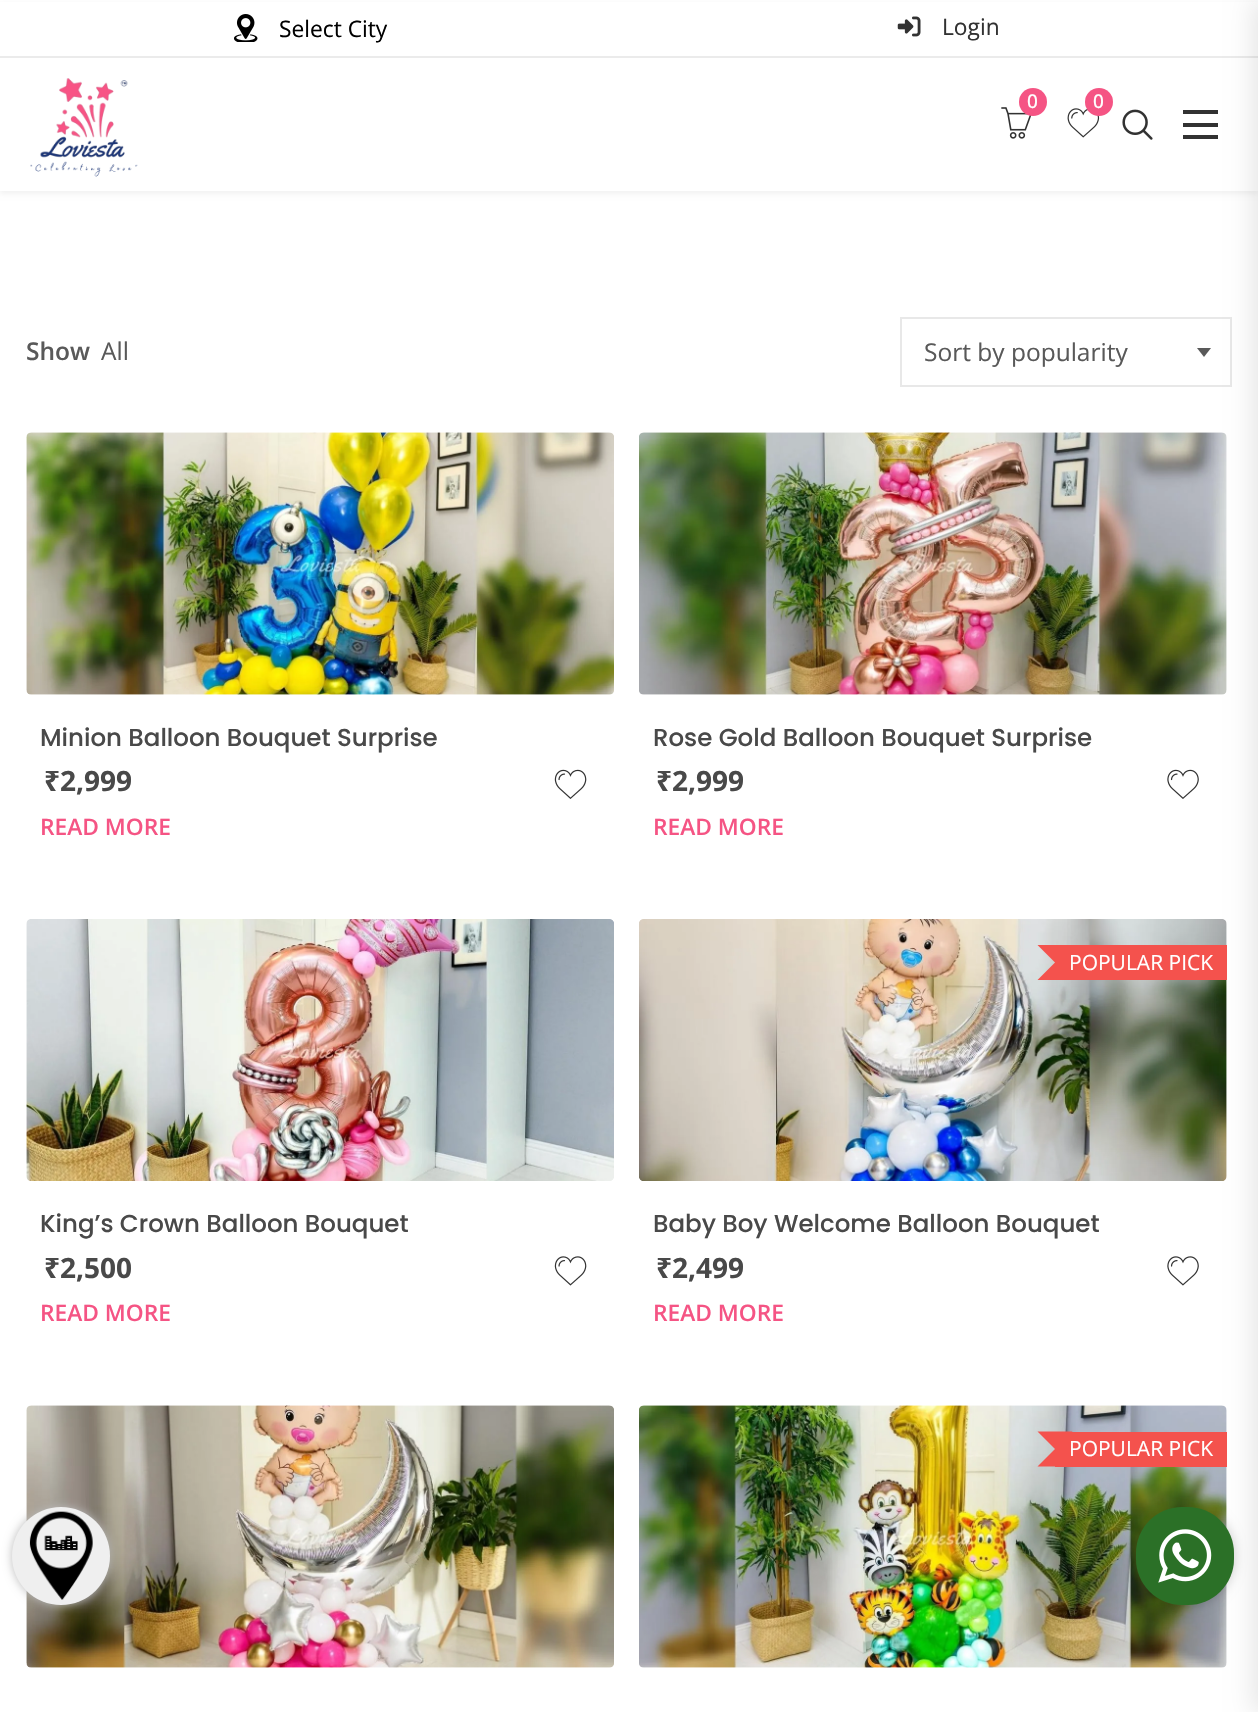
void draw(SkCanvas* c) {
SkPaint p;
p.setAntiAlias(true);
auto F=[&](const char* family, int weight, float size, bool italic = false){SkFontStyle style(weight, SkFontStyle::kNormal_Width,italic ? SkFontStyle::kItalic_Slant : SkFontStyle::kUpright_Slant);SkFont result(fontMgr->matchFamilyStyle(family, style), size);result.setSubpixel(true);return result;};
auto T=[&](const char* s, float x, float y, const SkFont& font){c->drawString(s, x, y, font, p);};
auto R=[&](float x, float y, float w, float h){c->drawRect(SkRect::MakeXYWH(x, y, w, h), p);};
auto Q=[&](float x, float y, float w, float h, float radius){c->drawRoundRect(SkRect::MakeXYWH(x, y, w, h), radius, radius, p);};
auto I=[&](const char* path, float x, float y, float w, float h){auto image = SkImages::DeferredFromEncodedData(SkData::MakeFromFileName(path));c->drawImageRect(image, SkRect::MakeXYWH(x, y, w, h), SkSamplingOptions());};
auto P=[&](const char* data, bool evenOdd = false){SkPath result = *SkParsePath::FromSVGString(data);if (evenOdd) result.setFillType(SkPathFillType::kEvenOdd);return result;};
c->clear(0xffffffff);
p.setColor(0x0d000000);
p.setMaskFilter(SkMaskFilter::MakeBlur(kNormal_SkBlurStyle, 2.5));
c->drawRect(SkRect::MakeXYWH(0,4,1258,190),p);
p.setMaskFilter(nullptr);
p.setColor(0xffffffff);
R(0,2,1258,189);
p.setColor(0xffebebeb);
R(0,56,1258,2);
I("1.png",234,14,24,28);
auto f1 = F("Open Sans",400,22.75);
p.setColor(0xff000000);
T("Select City",279,37,f1);
I("2.png",897,16,24,21);
p.setColor(0xff323232);
T("Login",942,35,f1);
I("3.png",30,78,108,99);
I("4.png",1001,107,31,32);
p.setColor(0xfff55484);
c->drawCircle(1033,102,14,p);
auto f2 = F("Open Sans",500,19);
p.setColor(0xffffffff);
T("0",1027,108,f2);
I("5.png",1067,108,33,30);
p.setColor(0xfff55484);
c->drawCircle(1099,102,14,p);
p.setColor(0xffffffff);
T("0",1093,108,f2);
I("6.png",1122,109,31,31);
p.setColor(0xff323232);
R(1183,123,35,4);
R(1183,110,35,4);
R(1183,135,35,4);
auto f3 = F("Open Sans",600,24.5);
p.setColor(0xff595959);
T("Show",26,360,f3);
auto f4 = F("Open Sans",400,24.5);
T("All",101,360,f4);
p.setStroke(true);
p.setStrokeWidth(2);
p.setColor(0xffe8e8e8);
c->drawRect(SkRect::MakeXYWH(901,318,330,68),p);
p.setStroke(false);
p.setColor(0xff595959);
T("Sort by popularity",924,361,f4);
c->drawPath(P("M1197 348h14l-7 9z"),p);
I("7.png",26,432,588,263);
auto f5 = F("Poppins",500,24.5);
p.setColor(0xff494949);
T("Minion Balloon Bouquet Surprise",40,746,f5);
auto f6 = F("Noto Sans",700,28);
T("₹",44,791,f6);
auto f7 = F("Open Sans",700,28);
T("2,999",60,791,f7);
I("8.png",554,769,33,30);
auto f8 = F("Open Sans",600,22.75);
p.setColor(0xfff55484);
T("READ MORE",40,835,f8);
I("9.png",639,432,588,263);
p.setColor(0xff494949);
T("Rose Gold Balloon Bouquet Surprise",653,746,f5);
T("₹",656,791,f6);
T("2,999",672,791,f7);
I("10.png",1167,769,32,30);
p.setColor(0xfff55484);
T("READ MORE",653,835,f8);
I("11.png",26,919,588,262);
p.setColor(0xff494949);
T("King’s Crown Balloon Bouquet",40,1232,f5);
T("₹",44,1278,f6);
T("2,500",60,1278,f7);
I("12.png",554,1256,33,30);
p.setColor(0xfff55484);
T("READ MORE",40,1321,f8);
I("13.png",639,919,588,262);
p.setColor(0xfff4524d);
R(1055,945,172,35);
auto f9 = F("Open Sans",400,21);
p.setColor(0xffffffff);
T("POPULAR PICK",1069,970,f9);
p.setColor(0xfff4524d);
c->drawPath(P("M1037.5 945h35l-17.5 17.5z"),p);
c->drawPath(P("M1072.5 980h-35l17.5-17.5z"),p);
p.setColor(0xff494949);
T("Baby Boy Welcome Balloon Bouquet",653,1232,f5);
T("₹",656,1278,f6);
T("2,499",672,1278,f7);
I("14.png",1167,1256,32,30);
p.setColor(0xfff55484);
T("READ MORE",653,1321,f8);
I("15.png",26,1405,588,263);
I("16.png",639,1405,588,263);
p.setColor(0xfff4524d);
R(1055,1432,172,35);
p.setColor(0xffffffff);
T("POPULAR PICK",1069,1456,f9);
p.setColor(0xfff4524d);
c->drawPath(P("M1037.5 1431.5h35l-17.5 17.5zm35 35h-35l17.5-17.5z"),p);
p.setColor(0x1a000000);
p.setMaskFilter(SkMaskFilter::MakeBlur(kNormal_SkBlurStyle, 13));
c->drawRect(SkRect::MakeXYWH(1253,0,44,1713),p);
p.setMaskFilter(nullptr);
p.setColor(0xffbcbcbc);
p.setMaskFilter(SkMaskFilter::MakeBlur(kNormal_SkBlurStyle, 5));
c->drawRoundRect(SkRect::MakeXYWH(12,1507,98,98),49,49,p);
p.setMaskFilter(nullptr);
p.setColor(0xffefefef);
c->drawCircle(61,1556,49,p);
I("17.png",29,1511,64,89);
p.setColor(0x33000000);
p.setMaskFilter(SkMaskFilter::MakeBlur(kNormal_SkBlurStyle, 6));
c->drawRoundRect(SkRect::MakeXYWH(1136,1507,98,98),46,46,p);
p.setMaskFilter(nullptr);
p.setColor(0xff2b7027);
Q(1136,1507,98,98,46);
I("18.png",1158,1529,54,54);
}
